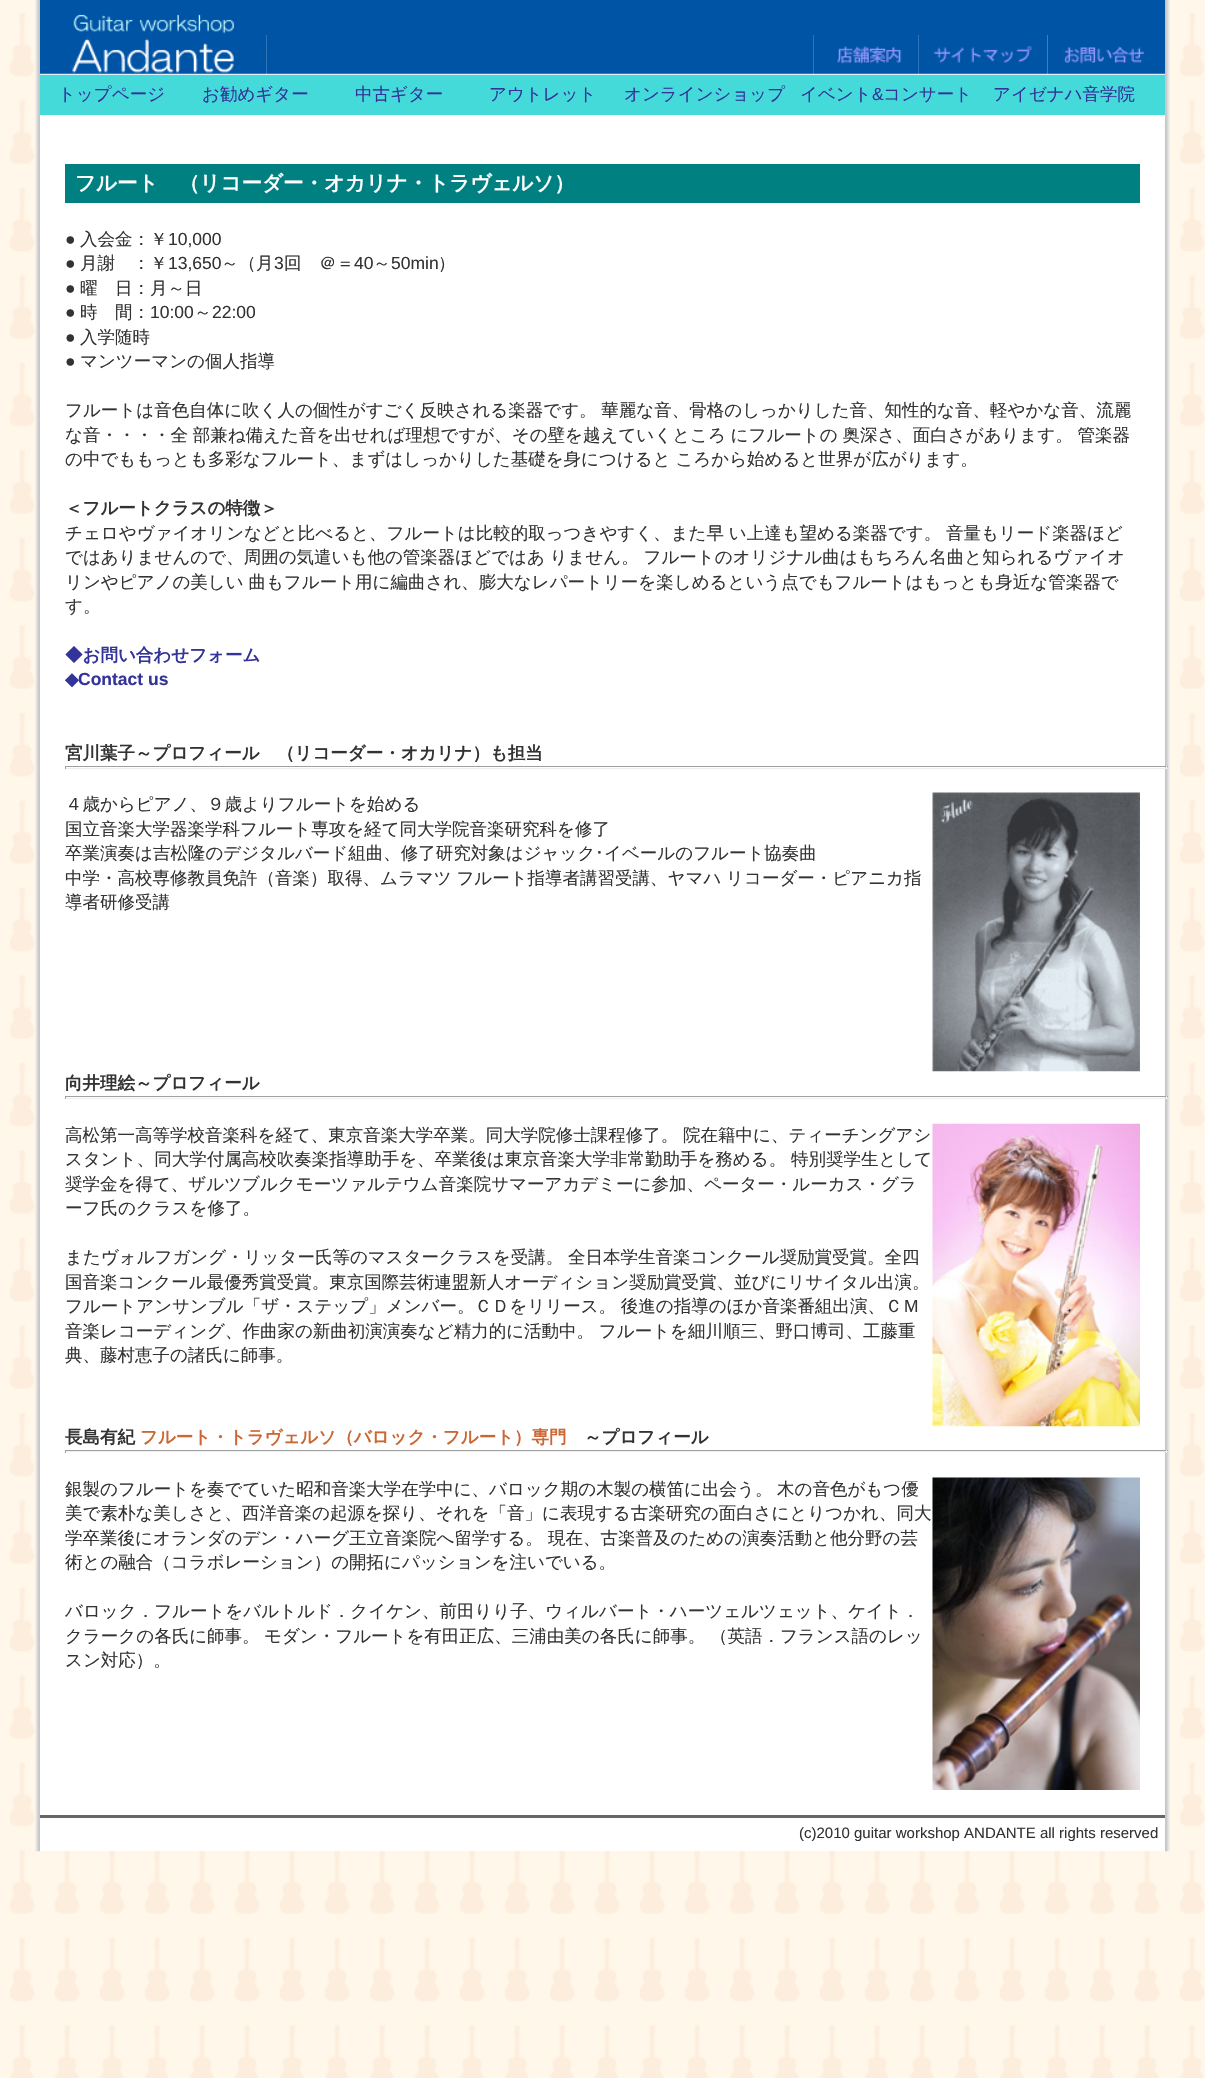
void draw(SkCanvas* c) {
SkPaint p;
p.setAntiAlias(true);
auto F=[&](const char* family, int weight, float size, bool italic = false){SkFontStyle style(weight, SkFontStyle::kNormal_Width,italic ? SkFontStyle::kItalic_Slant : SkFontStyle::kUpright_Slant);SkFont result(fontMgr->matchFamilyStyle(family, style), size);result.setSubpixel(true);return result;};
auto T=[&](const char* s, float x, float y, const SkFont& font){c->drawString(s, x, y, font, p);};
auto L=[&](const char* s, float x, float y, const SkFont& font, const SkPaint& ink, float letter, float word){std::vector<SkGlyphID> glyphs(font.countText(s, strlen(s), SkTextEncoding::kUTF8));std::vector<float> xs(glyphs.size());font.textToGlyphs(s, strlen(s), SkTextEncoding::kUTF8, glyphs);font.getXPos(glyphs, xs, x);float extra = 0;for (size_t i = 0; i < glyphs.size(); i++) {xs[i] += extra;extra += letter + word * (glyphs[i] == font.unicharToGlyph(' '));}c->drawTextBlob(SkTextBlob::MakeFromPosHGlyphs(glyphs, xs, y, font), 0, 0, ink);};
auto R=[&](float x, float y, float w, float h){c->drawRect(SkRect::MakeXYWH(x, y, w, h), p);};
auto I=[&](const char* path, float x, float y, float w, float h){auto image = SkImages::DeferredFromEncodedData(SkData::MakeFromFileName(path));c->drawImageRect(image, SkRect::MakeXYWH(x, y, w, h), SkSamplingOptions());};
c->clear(0xffffffff);
I("1.png",0,0,1205,2078);
I("2.png",35,0,1135,1852);
p.setColor(0xffffffff);
R(40,35,1125,1816);
I("3.png",40,0,226,35);
p.setColor(0xff0054a6);
R(266,0,899,35);
I("4.png",40,35,227,40);
I("5.png",266,35,548,40);
I("6.png",813,35,106,40);
I("7.png",918,35,130,40);
I("8.png",1047,35,118,40);
p.setColor(0xff44dada);
R(40,75,1125,40);
auto f1 = F("WenQuanYi Zen Hei",500,17.5);
p.setColor(0xff333399);
T("トップページ",58,100,f1);
T("お勧めギター",202,100,f1);
T("中古ギター",355,100,f1);
T("アウトレット",489,100,f1);
T("オンラインショップ",624,100,f1);
T("イベント",800,100,f1);
auto f2 = F("Liberation Sans",400,17.5);
T("&",872,100,f2);
T("コンサート",883,100,f1);
T("アイゼナハ音学院",993,100,f1);
p.setColor(0xff008080);
R(65,164,1075,39);
auto f3 = F("WenQuanYi Zen Hei",700,20.5);
p.setColor(0xffffffff);
T("フルート　（リコーダー・オカリナ・トラヴェルソ）",75,190,f3);
p.setColor(0xff333333);
T("●",65,245,f2);
T("入会金：￥",80,245,f1);
T("10,000",168,245,f2);
T("●",65,269,f2);
T("月謝　：￥",80,269,f1);
T("13,650",168,269,f2);
T("～（月",221,269,f1);
T("3",274,269,f2);
T("回　＠＝",284,269,f1);
T("40",354,269,f2);
T("～",373,269,f1);
T("50min",391,269,f2);
T("）",438,269,f1);
T("●",65,294,f2);
T("曜　日：月～日",80,294,f1);
T("●",65,318,f2);
T("時　間：",80,318,f1);
T("10:00",150,318,f2);
T("～",194,318,f1);
T("22:00",212,318,f2);
T("●",65,343,f2);
T("入学随時",80,343,f1);
T("●",65,367,f2);
T("マンツーマンの個人指導",80,367,f1);
L("フルートは音色自体に吹く人の個性がすごく反映される楽器です。 華麗な音、骨格のしっかりした音、知性的な音、軽やかな音、流麗",65,416,f1,p,0,-.5);
L("な音・・・・全 部兼ね備えた音を出せれば理想ですが、その壁を越えていくところ にフルートの 奥深さ、面白さがあります。 管楽器",65,441,f1,p,0,-.5);
L("の中でももっとも多彩なフルート、まずはしっかりした基礎を身につけると ころから始めると世界が広がります。",65,465,f1,p,0,-.5);
auto f4 = F("WenQuanYi Zen Hei",700,17.5);
T("＜フルートクラスの特徴＞",65,514,f4);
L("チェロやヴァイオリンなどと比べると、フルートは比較的取っつきやすく、また早 い上達も望める楽器です。 音量もリード楽器ほど",65,539,f1,p,0,-.5);
L("ではありませんので、周囲の気遣いも他の管楽器ほどではあ りません。 フルートのオリジナル曲はもちろん名曲と知られるヴァイオ",65,563,f1,p,0,-.5);
L("リンやピアノの美しい 曲もフルート用に編曲され、膨大なレパートリーを楽しめるという点でもフルートはもっとも身近な管楽器で",65,588,f1,p,0,-.5);
T("す。",65,612,f1);
p.setColor(0xff333399);
T("◆お問い合わせフォーム",65,661,f4);
auto f5 = F("DejaVu Sans",700,17.5);
T("◆",65,685,f5);
auto f6 = F("Liberation Sans",700,17.5);
T("Contact us",78,685,f6);
p.setColor(0xff333333);
T("宮川葉子～プロフィール　（リコーダー・オカリナ）も担当",65,759,f4);
p.setColor(0xff9f9f9f);
R(65,766,1103,1);
p.setColor(0xffeeeeee);
R(1166,766,1,3);
R(65,768,1103,1);
p.setColor(0xff9f9f9f);
R(65,766,1,3);
p.setColor(0xff333333);
T("４歳からピアノ、９歳よりフルートを始める",65,810,f1);
I("9.png",932,792,208,280);
T("国立音楽大学器楽学科フルート専攻を経て同大学院音楽研究科を修了",65,835,f1);
T("卒業演奏は吉松隆のデジタルバード組曲、修了研究対象はジャック",65,859,f1);
auto f7 = F("IPAGothic",400,17.5);
T("･",595,859,f7);
T("イベールのフルート協奏曲",604,859,f1);
L("中学・高校専修教員免許（音楽）取得、ムラマツ フルート指導者講習受講、ヤマハ リコーダー・ピアニカ指",65,884,f1,p,0,-.5);
T("導者研修受講",65,908,f1);
T("向井理絵～プロフィール",65,1089,f4);
p.setColor(0xff9f9f9f);
R(65,1096,1103,1);
p.setColor(0xffeeeeee);
R(1166,1096,1,3);
R(65,1098,1103,1);
p.setColor(0xff9f9f9f);
R(65,1096,1,3);
p.setColor(0xff333333);
L("高松第一高等学校音楽科を経て、東京音楽大学卒業。同大学院修士課程修了。 院在籍中に、ティーチングアシ",65,1141,f1,p,0,-.5);
I("10.png",932,1123,208,304);
L("スタント、同大学付属高校吹奏楽指導助手を、卒業後は東京音楽大学非常勤助手を務める。 特別奨学生として",65,1165,f1,p,0,-.5);
T("奨学金を得て、ザルツブルクモーツァルテウム音楽院サマーアカデミーに参加、ペーター・ルーカス・グラ",65,1190,f1);
T("ーフ氏のクラスを修了。",65,1214,f1);
L("またヴォルフガング・リッター氏等のマスタークラスを受講。 全日本学生音楽コンクール奨励賞受賞。全四",65,1263,f1,p,0,-.5);
T("国音楽コンクール最優秀賞受賞。東京国際芸術連盟新人オーディション奨励賞受賞、並びにリサイタル出演。",65,1288,f1);
L("フルートアンサンブル「ザ・ステップ」メンバー。ＣＤをリリース。 後進の指導のほか音楽番組出演、ＣＭ",65,1312,f1,p,0,-.5);
L("音楽レコーディング、作曲家の新曲初演演奏など精力的に活動中。 フルートを細川順三、野口博司、工藤重",65,1337,f1,p,0,-.5);
T("典、藤村恵子の諸氏に師事。",65,1361,f1);
T("長島有紀",65,1443,f4);
p.setColor(0xffcc6633);
T("フルート・トラヴェルソ（バロック・フルート）専門",140,1443,f4);
p.setColor(0xff333333);
T("～プロフィール",584,1443,f4);
p.setColor(0xff9f9f9f);
R(65,1450,1103,1);
p.setColor(0xffeeeeee);
R(1166,1450,1,3);
R(65,1451,1103,1);
p.setColor(0xff9f9f9f);
R(65,1450,1,3);
p.setColor(0xff333333);
T("銀製のフルートを奏でていた昭和音楽大学在学中に、バロック期の木製の横笛に出会う。",65,1495,f1);
T("木の音色がもつ優",777,1495,f1);
I("11.png",932,1477,208,313);
T("美で素朴な美しさと、西洋音楽の起源を探り、それを「音」に表現する古楽研究の面白さにとりつかれ、同大",65,1519,f1);
T("学卒業後にオランダのデン・ハーグ王立音楽院へ留学する。",65,1544,f1);
T("現在、古楽普及のための演奏活動と他分野の芸",548,1544,f1);
T("術との融合（コラボレーション）の開拓にパッションを注いでいる。",65,1568,f1);
T("バロック．フルートをバルトルド．クイケン、前田りり子、ウィルバート・ハーツェルツェット、ケイト．",65,1617,f1);
T("クラークの各氏に師事。",65,1642,f1);
L("モダン・フルートを有田正広、三浦由美の各氏に師事。 （英語．フランス語のレッ",264,1642,f1,p,0,-.5);
T("スン対応）。",65,1666,f1);
p.setColor(0xff666666);
R(40,1815,1125,3);
auto f8 = F("Liberation Sans",400,15);
p.setColor(0xff333333);
T("(c)2010 guitar workshop ANDANTE all rights reserved",799,1838,f8);
}
